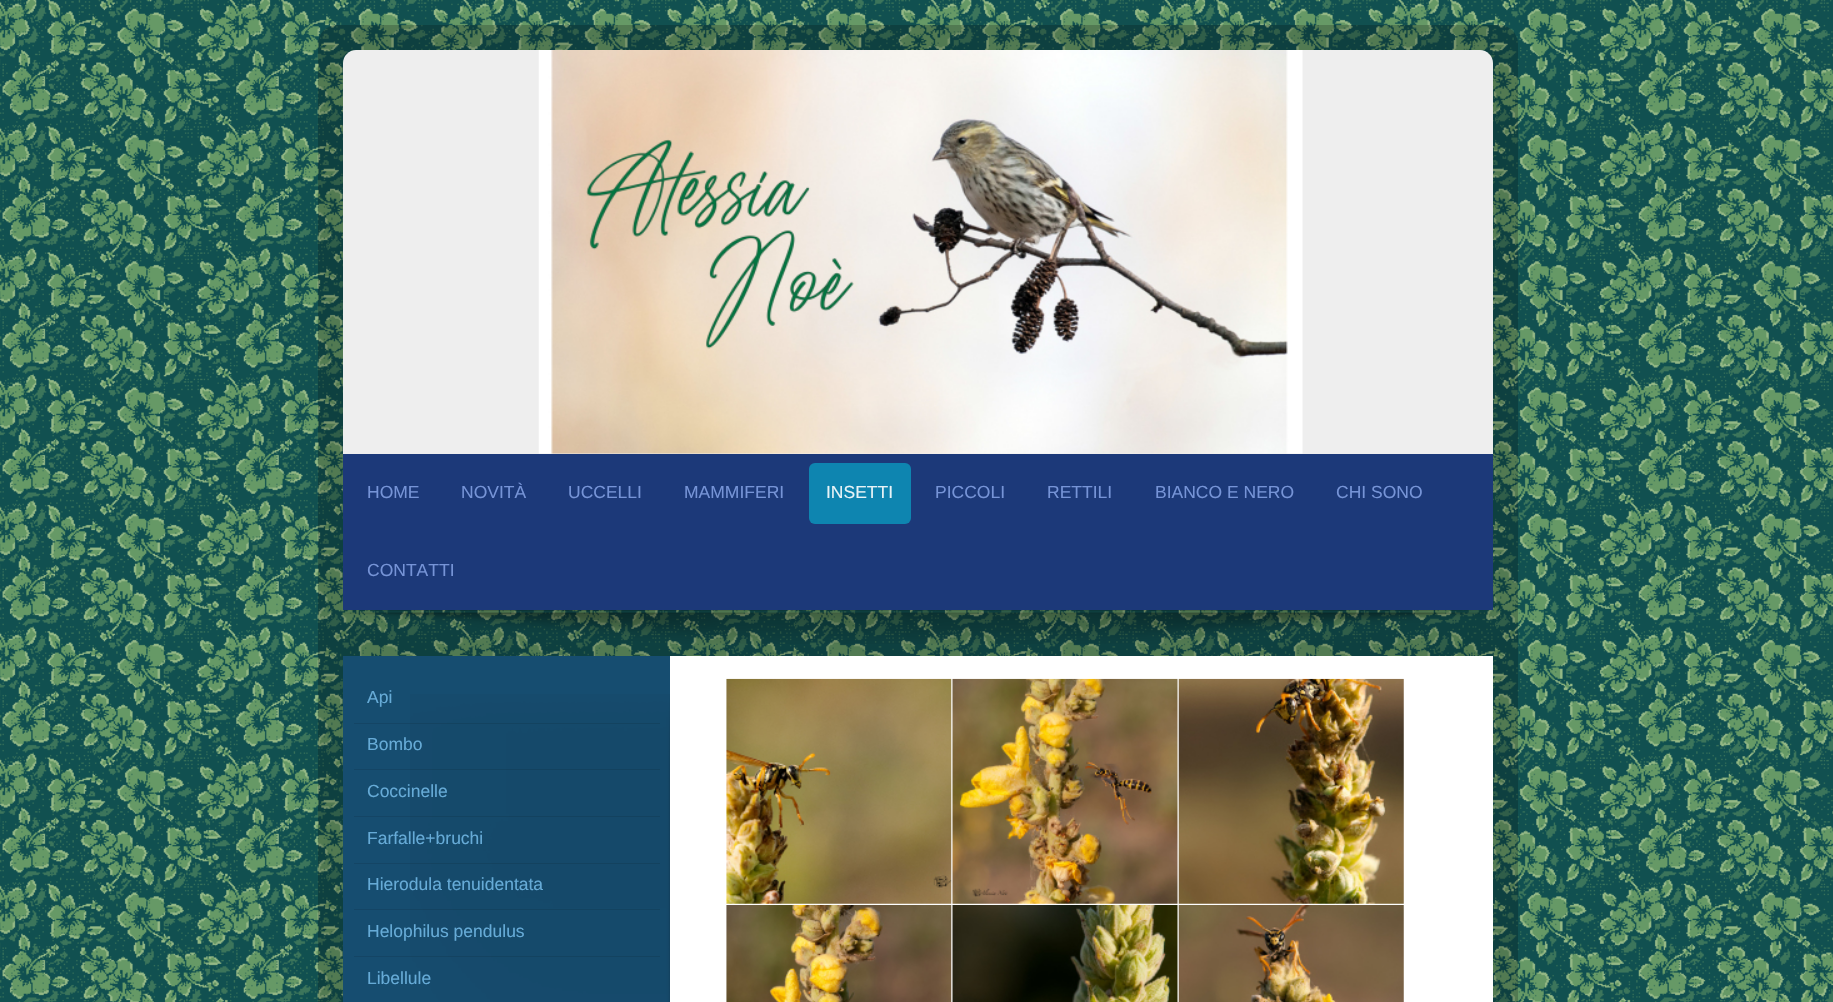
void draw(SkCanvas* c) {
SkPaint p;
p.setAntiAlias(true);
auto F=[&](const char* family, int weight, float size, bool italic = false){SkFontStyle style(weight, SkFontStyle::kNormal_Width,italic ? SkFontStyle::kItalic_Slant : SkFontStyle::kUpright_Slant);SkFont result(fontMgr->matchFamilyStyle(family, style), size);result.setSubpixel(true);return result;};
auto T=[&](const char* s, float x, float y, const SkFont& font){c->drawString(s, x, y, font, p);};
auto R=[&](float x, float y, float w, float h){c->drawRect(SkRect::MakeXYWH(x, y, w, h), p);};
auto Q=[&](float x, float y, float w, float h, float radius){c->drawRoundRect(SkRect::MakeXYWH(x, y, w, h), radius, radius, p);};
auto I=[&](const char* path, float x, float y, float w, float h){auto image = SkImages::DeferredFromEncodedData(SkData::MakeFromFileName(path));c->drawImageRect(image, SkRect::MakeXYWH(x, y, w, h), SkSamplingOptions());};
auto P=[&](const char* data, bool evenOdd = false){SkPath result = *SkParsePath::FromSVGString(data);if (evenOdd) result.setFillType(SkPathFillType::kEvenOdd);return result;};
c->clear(0xffffffff);
I("1.png",0,0,1833,1002);
p.setColor(0x33000000);
Q(318,25,1200,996,19);
p.setColor(0xffeeeeee);
c->drawPath(P("M356 50h1124c7 0 13 6 13 13v391h-1150v-391c0-7 6-13 13-13z"),p);
I("2.png",538,50,765,404);
I("3.png",343,610,1149,34);
p.setColor(0xff1c3979);
R(343,454,1150,156);
auto f1 = F("Liberation Sans",400,17.5);
p.setColor(0xff7694d7);
T("HOME",367,498,f1);
T("NOVITÀ",461,498,f1);
T("UCCELLI",568,498,f1);
T("MAMMIFERI",684,498,f1);
p.setColor(0xff0e85b0);
Q(809,463,102,61,6);
p.setColor(0xffe7f3f7);
T("INSETTI",826,498,f1);
p.setColor(0xff7694d7);
T("PICCOLI",935,498,f1);
T("RETTILI",1047,498,f1);
T("BIANCO E NERO",1155,498,f1);
T("CHI SONO",1336,498,f1);
T("CONTATTI",367,576,f1);
p.setColor(0xffffffff);
R(670,656,823,346);
p.setColor(0xff164d70);
R(343,656,327,346);
I("4.png",726,678,226,226);
I("5.png",952,678,226,226);
I("6.png",1178,678,226,226);
I("7.png",726,905,226,97);
I("8.png",952,905,226,97);
I("9.png",1178,905,226,97);
I("10.png",410,694,260,308);
p.setColor(0x1a000000);
R(354,723,306,1);
p.setColor(0xff66abd7);
T("Api",367,703,f1);
p.setColor(0x1a000000);
R(354,769,306,1);
p.setColor(0xff66abd7);
T("Bombo",367,750,f1);
p.setColor(0x1a000000);
R(354,816,306,1);
p.setColor(0xff66abd7);
T("Coccinelle",367,797,f1);
p.setColor(0x1a000000);
R(354,863,306,1);
p.setColor(0xff66abd7);
T("Farfalle+bruchi",367,844,f1);
p.setColor(0x1a000000);
R(354,909,306,1);
p.setColor(0xff66abd7);
T("Hierodula tenuidentata",367,890,f1);
p.setColor(0x1a000000);
R(354,956,306,1);
p.setColor(0xff66abd7);
T("Helophilus pendulus",367,937,f1);
T("Libellule",367,984,f1);
}
